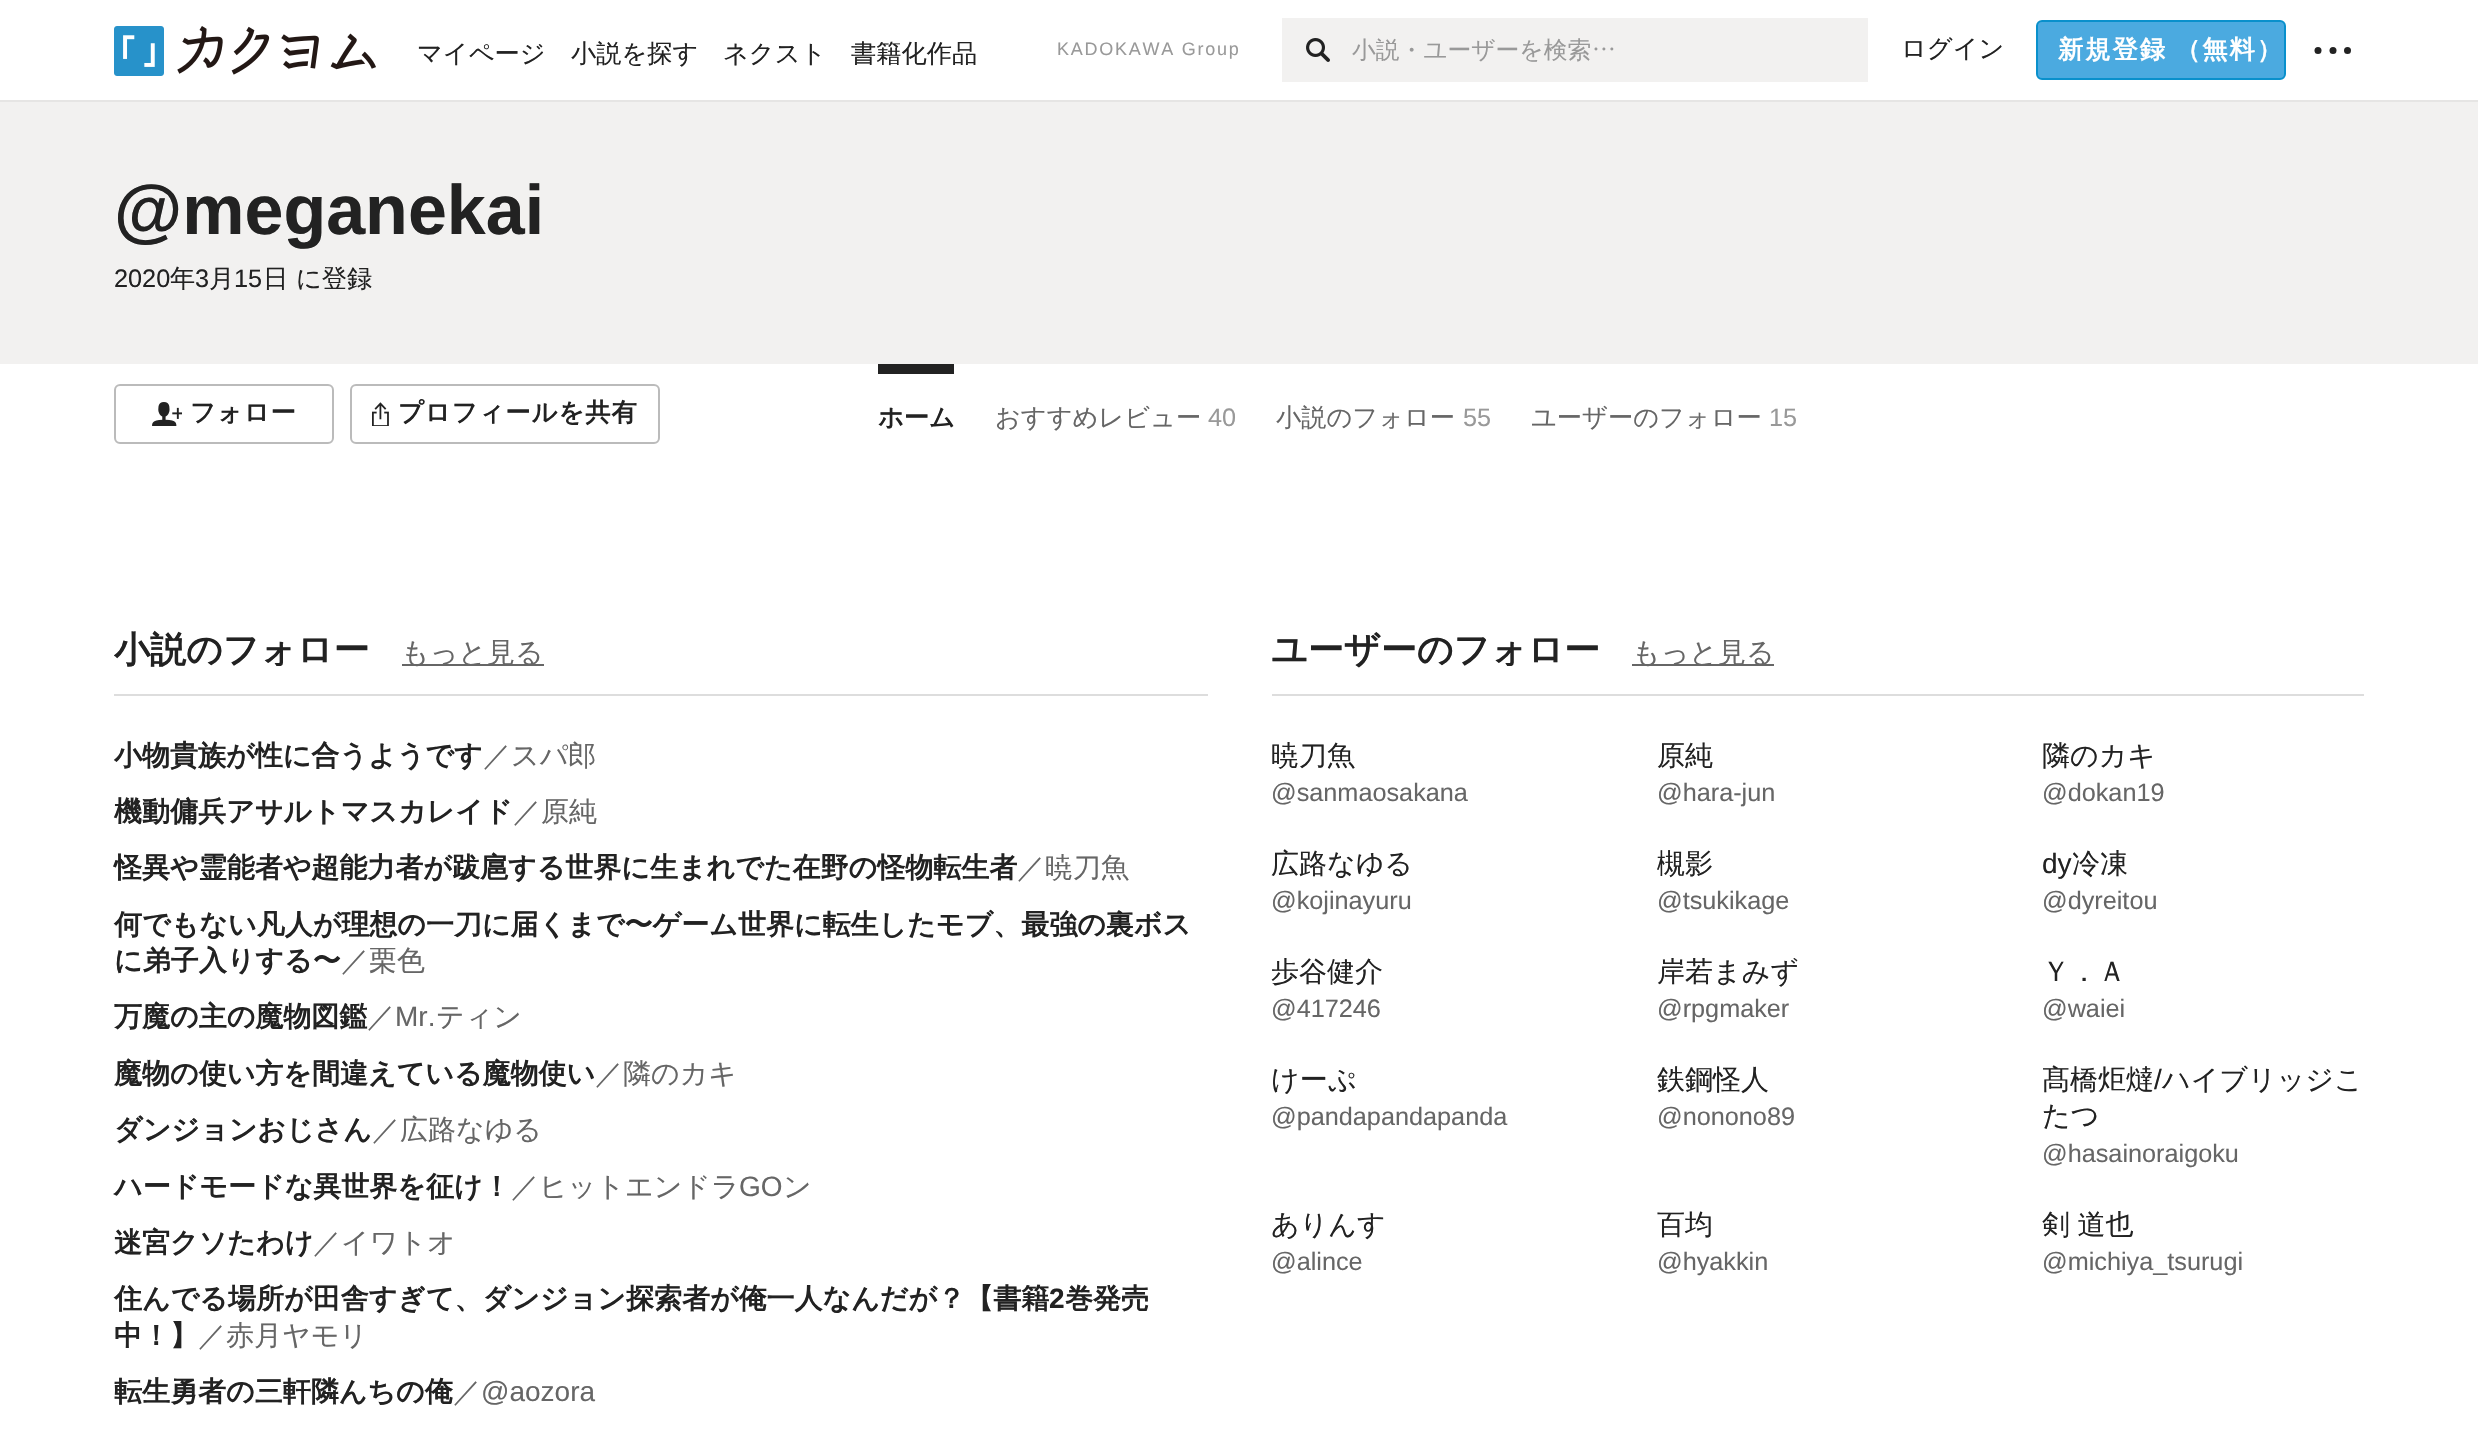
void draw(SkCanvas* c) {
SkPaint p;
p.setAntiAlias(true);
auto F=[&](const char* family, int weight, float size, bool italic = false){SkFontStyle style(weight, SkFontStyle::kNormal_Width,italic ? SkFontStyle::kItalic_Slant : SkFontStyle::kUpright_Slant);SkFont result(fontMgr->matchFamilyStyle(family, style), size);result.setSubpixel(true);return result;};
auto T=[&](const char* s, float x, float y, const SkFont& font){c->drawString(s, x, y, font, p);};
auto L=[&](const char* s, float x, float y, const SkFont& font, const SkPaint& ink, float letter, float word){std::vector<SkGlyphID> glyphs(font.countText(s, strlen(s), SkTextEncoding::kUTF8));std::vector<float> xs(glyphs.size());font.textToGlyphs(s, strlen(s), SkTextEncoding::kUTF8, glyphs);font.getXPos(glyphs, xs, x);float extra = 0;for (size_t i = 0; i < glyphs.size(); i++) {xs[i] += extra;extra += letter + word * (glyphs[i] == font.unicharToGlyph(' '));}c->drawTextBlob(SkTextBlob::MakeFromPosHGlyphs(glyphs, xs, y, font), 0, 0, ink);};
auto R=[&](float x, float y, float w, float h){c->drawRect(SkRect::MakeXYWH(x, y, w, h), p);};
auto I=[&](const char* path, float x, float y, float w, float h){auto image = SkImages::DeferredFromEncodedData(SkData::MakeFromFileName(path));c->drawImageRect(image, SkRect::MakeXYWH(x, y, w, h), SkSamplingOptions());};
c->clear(0xffffffff);
p.setColor(0xffe6e5e4);
R(0,100,2478,2);
I("1.png",114,26,262,50);
auto f1 = F("WenQuanYi Zen Hei",500,25.25);
p.setColor(0xff222222);
T("マイページ",417,62,f1);
T("小説を探す",571,62,f1);
T("ネクスト",723,62,f1);
T("書籍化作品",851,62,f1);
auto f2 = F("Liberation Sans",400,18);
p.setColor(0xff999999);
L("KADOKAWA Group",1057,55,f2,p,1.75,0);
p.setColor(0xfff2f1f0);
R(1282,18,586,64);
I("2.png",1306,38,24,24);
auto f3 = F("WenQuanYi Zen Hei",500,23.75);
p.setColor(0xff999999);
T("小説・ユーザーを検索",1352,58,f3);
I("3.png",1594,47,20,4);
p.setColor(0xff222222);
T("ログイン",1901,57,f1);
p.setColor(0xff4baae0);
c->drawRoundRect(SkRect::MakeXYWH(2037,21,248,58),5,5,p);
p.setStroke(true);
p.setStrokeWidth(2);
p.setColor(0xff0990cc);
c->drawRoundRect(SkRect::MakeXYWH(2037,21,248,58),5,5,p);
auto f4 = F("WenQuanYi Zen Hei",700,25.25);
p.setStroke(false);
p.setColor(0xffffffff);
L("新規登録",2058,58,f4,p,2,0);
L("（無料）",2175,58,f4,p,2,0);
p.setColor(0xff222222);
c->drawCircle(2318,50.5,3.5,p);
c->drawCircle(2333,50.5,3.5,p);
c->drawCircle(2347.5,50.5,3.5,p);
p.setColor(0xfff2f1f0);
R(0,102,2478,262);
auto f5 = F("Liberation Sans",700,70);
p.setColor(0xff222222);
T("@meganekai",114,234,f5);
auto f6 = F("Liberation Sans",400,25.25);
T("2020",114,287,f6);
T("年",170,287,f1);
T("3",195,287,f6);
T("月",209,287,f1);
T("15",234,287,f6);
T("日",263,287,f1);
T("に登録",296,287,f1);
p.setStroke(true);
p.setColor(0xffbbbbbb);
c->drawRoundRect(SkRect::MakeXYWH(115,385,218,58),5,5,p);
I("4.png",152,402,30,24);
p.setStroke(false);
p.setColor(0xff222222);
L("フォロー",190,421,f4,p,1,0);
p.setStroke(true);
p.setColor(0xffbbbbbb);
c->drawRoundRect(SkRect::MakeXYWH(351,385,308,58),5,5,p);
I("5.png",372,402,17,24);
p.setStroke(false);
p.setColor(0xff222222);
L("プロフィールを共有",398,421,f4,p,1,0);
R(878,364,76,10);
T("ホーム",878,426,f4);
p.setColor(0xff666666);
T("おすすめレビュー",995,426,f1);
p.setColor(0xff999999);
T("40",1208,426,f6);
p.setColor(0xff666666);
T("小説のフォロー",1276,426,f1);
p.setColor(0xff999999);
T("55",1463,426,f6);
p.setColor(0xff666666);
T("ユーザーのフォロー",1531,426,f1);
p.setColor(0xff999999);
T("15",1769,426,f6);
p.setColor(0xffdddddd);
R(114,694,1094,2);
auto f7 = F("WenQuanYi Zen Hei",700,36);
p.setColor(0xff222222);
T("小説のフォロー",114,662,f7);
p.setColor(0xff666666);
R(402,664,142,2);
auto f8 = F("WenQuanYi Zen Hei",500,28);
T("もっと見る",401,662,f8);
auto f9 = F("WenQuanYi Zen Hei",700,28);
p.setColor(0xff222222);
T("小物貴族が性に合うようです",114,765,f9);
p.setColor(0xff666666);
T("／スパ郎",483,765,f8);
p.setColor(0xff222222);
T("機動傭兵アサルトマスカレイド",114,821,f9);
p.setColor(0xff666666);
T("／原純",513,821,f8);
p.setColor(0xff222222);
T("怪異や霊能者や超能力者が跋扈する世界に生まれでた在野の怪物転生者",114,877,f9);
p.setColor(0xff666666);
T("／暁刀魚",1017,877,f8);
p.setColor(0xff222222);
T("何でもない凡人が理想の一刀に届くまで〜ゲーム世界に転生したモブ、最強の裏ボス",114,934,f9);
T("に弟子入りする〜",114,970,f9);
p.setColor(0xff666666);
T("／栗色",341,970,f8);
p.setColor(0xff222222);
T("万魔の主の魔物図鑑",114,1026,f9);
p.setColor(0xff666666);
T("／",367,1026,f8);
auto f10 = F("Liberation Sans",400,28);
T("Mr.",395,1026,f10);
T("ティン",436,1026,f8);
p.setColor(0xff222222);
T("魔物の使い方を間違えている魔物使い",114,1083,f9);
p.setColor(0xff666666);
T("／隣のカキ",595,1083,f8);
p.setColor(0xff222222);
T("ダンジョンおじさん",114,1139,f9);
p.setColor(0xff666666);
T("／広路なゆる",372,1139,f8);
p.setColor(0xff222222);
T("ハードモードな異世界を征け！",114,1196,f9);
p.setColor(0xff666666);
T("／ヒットエンドラ",511,1196,f8);
T("GO",739,1196,f10);
T("ン",783,1196,f8);
p.setColor(0xff222222);
T("迷宮クソたわけ",114,1252,f9);
p.setColor(0xff666666);
T("／イワトオ",313,1252,f8);
p.setColor(0xff222222);
T("住んでる場所が田舎すぎて、ダンジョン探索者が俺一人なんだが？【書籍",114,1308,f9);
auto f11 = F("Liberation Sans",700,28);
T("2",1049,1308,f11);
T("巻発売",1065,1308,f9);
T("中！】",114,1345,f9);
p.setColor(0xff666666);
T("／赤月ヤモリ",198,1345,f8);
p.setColor(0xff222222);
T("転生勇者の三軒隣んちの俺",114,1401,f9);
p.setColor(0xff666666);
T("／",453,1401,f8);
T("@aozora",481,1401,f10);
p.setColor(0xffdddddd);
R(1272,694,1092,2);
p.setColor(0xff222222);
T("ユーザーのフォロー",1271,662,f7);
p.setColor(0xff666666);
R(1632,664,142,2);
T("もっと見る",1632,662,f8);
p.setColor(0xff222222);
T("暁刀魚",1271,765,f8);
p.setColor(0xff666666);
T("@sanmaosakana",1271,801,f6);
p.setColor(0xff222222);
T("原純",1657,765,f8);
p.setColor(0xff666666);
T("@hara-jun",1657,801,f6);
p.setColor(0xff222222);
T("隣のカキ",2042,765,f8);
p.setColor(0xff666666);
T("@dokan19",2042,801,f6);
p.setColor(0xff222222);
T("広路なゆる",1271,873,f8);
p.setColor(0xff666666);
T("@kojinayuru",1271,909,f6);
p.setColor(0xff222222);
T("槻影",1657,873,f8);
p.setColor(0xff666666);
T("@tsukikage",1657,909,f6);
p.setColor(0xff222222);
T("dy",2042,873,f10);
T("冷凍",2072,873,f8);
p.setColor(0xff666666);
T("@dyreitou",2042,909,f6);
p.setColor(0xff222222);
T("歩谷健介",1271,981,f8);
p.setColor(0xff666666);
T("@417246",1271,1017,f6);
p.setColor(0xff222222);
T("岸若まみず",1657,981,f8);
p.setColor(0xff666666);
T("@rpgmaker",1657,1017,f6);
p.setColor(0xff222222);
T("Ｙ．Ａ",2042,981,f8);
p.setColor(0xff666666);
T("@waiei",2042,1017,f6);
p.setColor(0xff222222);
T("けーぷ",1271,1089,f8);
p.setColor(0xff666666);
T("@pandapandapanda",1271,1125,f6);
p.setColor(0xff222222);
T("鉄鋼怪人",1657,1089,f8);
p.setColor(0xff666666);
T("@nonono89",1657,1125,f6);
p.setColor(0xff222222);
T("髙橋炬燵",2042,1089,f8);
T("/",2154,1089,f10);
T("ハイブリッジこ",2162,1089,f8);
T("たつ",2042,1125,f8);
p.setColor(0xff666666);
T("@hasainoraigoku",2042,1162,f6);
p.setColor(0xff222222);
T("ありんす",1271,1234,f8);
p.setColor(0xff666666);
T("@alince",1271,1270,f6);
p.setColor(0xff222222);
T("百均",1657,1234,f8);
p.setColor(0xff666666);
T("@hyakkin",1657,1270,f6);
p.setColor(0xff222222);
L("剣 道也",2042,1234,f8,p,0,-1);
p.setColor(0xff666666);
T("@michiya_tsurugi",2042,1270,f6);
}
